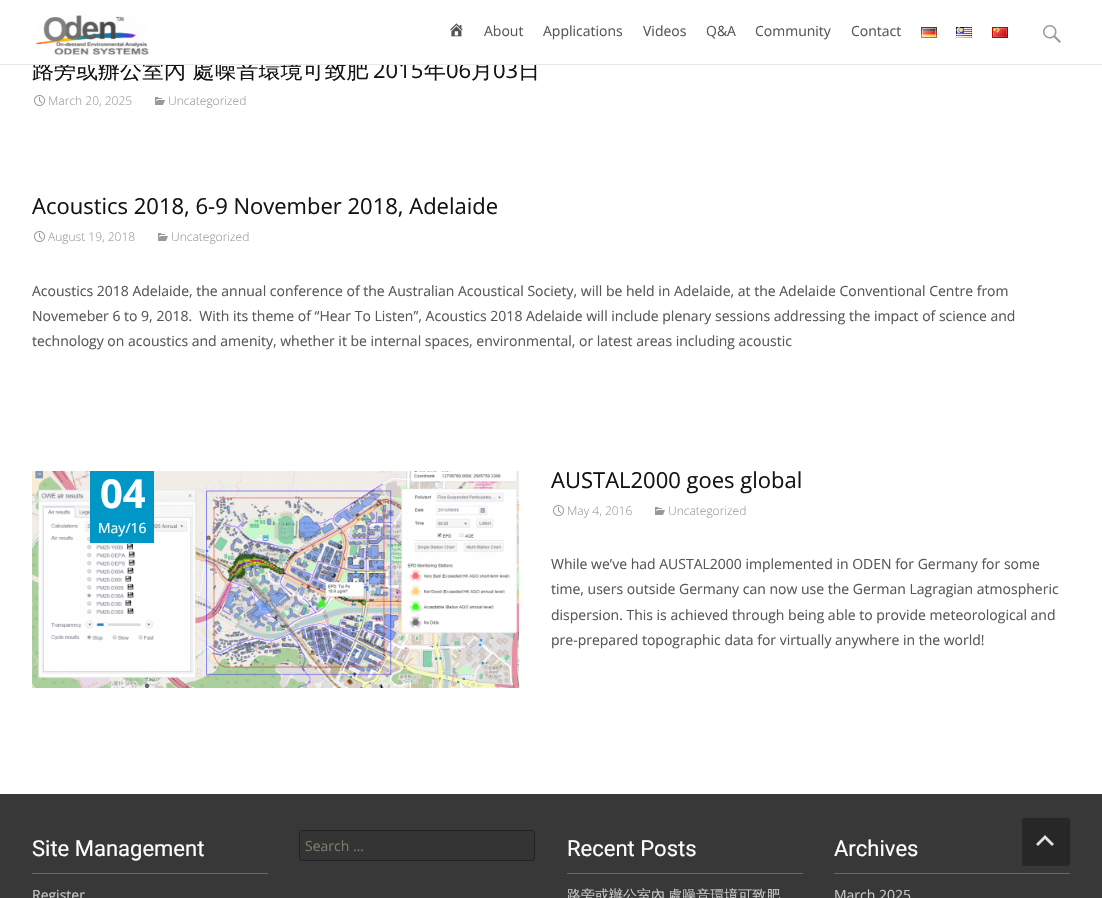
void draw(SkCanvas* c) {
SkPaint p;
p.setAntiAlias(true);
auto F=[&](const char* family, int weight, float size, bool italic = false){SkFontStyle style(weight, SkFontStyle::kNormal_Width,italic ? SkFontStyle::kItalic_Slant : SkFontStyle::kUpright_Slant);SkFont result(fontMgr->matchFamilyStyle(family, style), size);result.setSubpixel(true);return result;};
auto T=[&](const char* s, float x, float y, const SkFont& font){c->drawString(s, x, y, font, p);};
auto L=[&](const char* s, float x, float y, const SkFont& font, const SkPaint& ink, float letter, float word){std::vector<SkGlyphID> glyphs(font.countText(s, strlen(s), SkTextEncoding::kUTF8));std::vector<float> xs(glyphs.size());font.textToGlyphs(s, strlen(s), SkTextEncoding::kUTF8, glyphs);font.getXPos(glyphs, xs, x);float extra = 0;for (size_t i = 0; i < glyphs.size(); i++) {xs[i] += extra;extra += letter + word * (glyphs[i] == font.unicharToGlyph(' '));}c->drawTextBlob(SkTextBlob::MakeFromPosHGlyphs(glyphs, xs, y, font), 0, 0, ink);};
auto R=[&](float x, float y, float w, float h){c->drawRect(SkRect::MakeXYWH(x, y, w, h), p);};
auto Q=[&](float x, float y, float w, float h, float radius){c->drawRoundRect(SkRect::MakeXYWH(x, y, w, h), radius, radius, p);};
auto I=[&](const char* path, float x, float y, float w, float h){auto image = SkImages::DeferredFromEncodedData(SkData::MakeFromFileName(path));c->drawImageRect(image, SkRect::MakeXYWH(x, y, w, h), SkSamplingOptions());};
auto P=[&](const char* data, bool evenOdd = false){SkPath result = *SkParsePath::FromSVGString(data);if (evenOdd) result.setFillType(SkPathFillType::kEvenOdd);return result;};
c->clear(0xffffffff);
auto f1 = F("WenQuanYi Zen Hei",500,22);
p.setColor(0xff141412);
T("路旁或辦公室內 處噪音環境可致肥",32,78,f1);
auto f2 = F("Open Sans",400,22);
T("2015",373,78,f2);
T("年",424,78,f1);
T("06",446,78,f2);
T("月",471,78,f1);
T("03",493,78,f2);
T("日",518,78,f1);
p.setColor(0xffffffff);
R(33,59,504,5);
p.setColor(0xffe7e7e7);
R(0,64,1102,1);
I("1.png",36,15,113,40);
I("2.png",450,23,13,14);
auto f3 = F("Open Sans",400,14);
p.setColor(0xff575757);
T("About",484,36,f3);
T("Applications",543,36,f3);
T("Videos",643,36,f3);
T("Q&A",706,36,f3);
T("Community",755,36,f3);
T("Contact",851,36,f3);
I("3.png",921,27,16,11);
I("4.png",956,27,16,11);
I("5.png",992,27,16,11);
I("6.png",1043,25,18,18);
I("7.png",34,95,11,11);
auto f4 = F("Open Sans",300,12);
p.setColor(0xff999999);
T("March 20, 2025",48,105,f4);
I("8.png",155,97,10,8);
T("Uncategorized",168,105,f4);
p.setColor(0xff141412);
T("Acoustics 2018, 6-9 November 2018, Adelaide",32,214,f2);
I("7.png",34,231,11,11);
p.setColor(0xff999999);
T("August 19, 2018",48,241,f4);
I("8.png",158,233,10,8);
T("Uncategorized",171,241,f4);
p.setColor(0xff575757);
T("Acoustics 2018 Adelaide, the annual conference of the Australian Acoustical Society, will be held in Adelaide, at the Adelaide Conventional Centre from",32,296,f3);
T("Novemeber 6 to 9, 2018.  With its theme of “Hear To Listen”, Acoustics 2018 Adelaide will include plenary sessions addressing the impact of science and",32,321,f3);
T("technology on acoustics and amenity, whether it be internal spaces, environmental, or latest areas including acoustic",32,346,f3);
I("9.png",32,471,487,217);
p.setColor(0xff0097c6);
R(90,471,64,72);
auto f5 = F("Open Sans",700,40);
p.setColor(0xffffffff);
T("04",100,508,f5);
T("May/16",98,533,f3);
p.setColor(0xff141412);
T("AUSTAL2000 goes global",551,488,f2);
I("7.png",553,505,11,11);
p.setColor(0xff999999);
T("May 4, 2016",567,515,f4);
I("8.png",655,507,10,8);
T("Uncategorized",668,515,f4);
p.setColor(0xff575757);
T("While we’ve had AUSTAL2000 implemented in ODEN for Germany for some",551,569,f3);
T("time, users outside Germany can now use the German Lagragian atmospheric",551,594,f3);
T("dispersion. This is achieved through being able to provide meteorological and",551,620,f3);
T("pre-prepared topographic data for virtually anywhere in the world!",551,645,f3);
p.setColor(0xff383838);
R(0,794,1102,104);
p.setColor(0xff676767);
R(32,873,236,1);
auto f6 = F("Roboto",400,22);
p.setColor(0xffffffff);
T("Site Management",32,856,f6);
p.setColor(0xffc7c7c7);
T("Register",32,900,f3);
p.setColor(0xff343434);
c->drawRoundRect(SkRect::MakeXYWH(299.5,830.5,235,30),2.5,2.5,p);
p.setStroke(true);
p.setStrokeWidth(1);
p.setColor(0xff222222);
c->drawRoundRect(SkRect::MakeXYWH(299.5,830.5,235,30),2.5,2.5,p);
p.setStroke(false);
p.setColor(0xff7d7b6d);
T("Search …",305,851,f3);
p.setColor(0xff676767);
R(567,873,236,1);
p.setColor(0xffffffff);
T("Recent Posts",567,856,f6);
auto f7 = F("WenQuanYi Zen Hei",500,14);
p.setColor(0xffc7c7c7);
L("路旁或辦公室內 處噪音環境可致肥",567,900,f7,p,0,-1);
p.setColor(0xff676767);
R(834,873,236,1);
p.setColor(0xffffffff);
T("Archives",834,856,f6);
p.setColor(0xffc7c7c7);
T("March 2025",834,900,f3);
p.setColor(0xff272727);
Q(1022,818,48,48,3);
p.setColor(0xffdfdfdf);
c->drawPath(P("M1052 846l-7-7l-7 7l-2-2l9-9l9 9z"),p);
}
